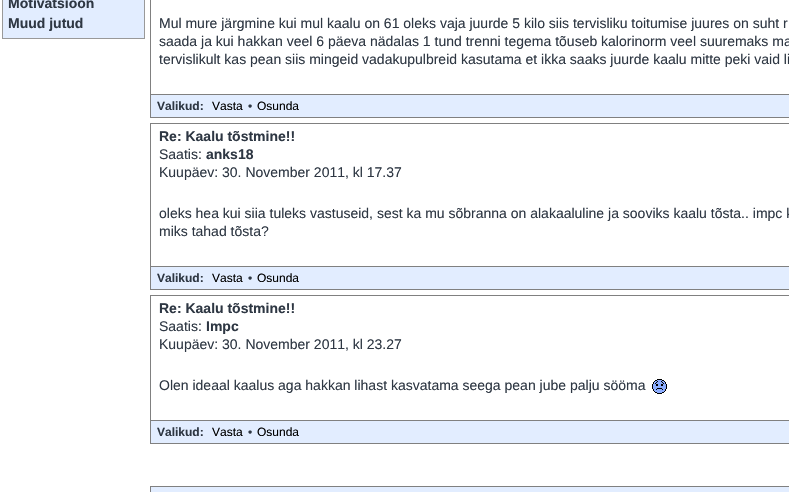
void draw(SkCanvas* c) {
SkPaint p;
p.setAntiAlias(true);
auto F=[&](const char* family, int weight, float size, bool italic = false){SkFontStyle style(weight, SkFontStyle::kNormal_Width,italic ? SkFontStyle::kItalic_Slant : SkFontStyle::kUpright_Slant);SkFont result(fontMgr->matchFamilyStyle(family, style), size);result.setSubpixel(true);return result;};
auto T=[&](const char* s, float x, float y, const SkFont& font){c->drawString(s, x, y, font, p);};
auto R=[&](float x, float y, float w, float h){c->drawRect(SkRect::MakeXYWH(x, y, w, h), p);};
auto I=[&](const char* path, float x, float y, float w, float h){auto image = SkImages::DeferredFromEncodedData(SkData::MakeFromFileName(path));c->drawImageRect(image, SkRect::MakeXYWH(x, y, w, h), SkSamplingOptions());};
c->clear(0xffffffff);
p.setColor(0xffe2edff);
c->drawRect(SkRect::MakeXYWH(2.5,-.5,142,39),p);
p.setStroke(true);
p.setStrokeWidth(1);
p.setColor(0xff999999);
c->drawRect(SkRect::MakeXYWH(2.5,-.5,142,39),p);
auto f1 = F("Liberation Sans",700,14);
p.setStroke(false);
p.setColor(0xff2e3743);
T("Motivatsioon",8,8,f1);
T("Muud jutud",8,28,f1);
p.setStroke(true);
p.setColor(0xff808080);
c->drawRect(SkRect::MakeXYWH(150.5,-.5,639,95),p);
auto f2 = F("Liberation Sans",400,14);
p.setStroke(false);
p.setColor(0xff2e3743);
T("Mul mure järgmine kui mul kaalu on 61 oleks vaja juurde 5 kilo siis tervisliku toitumise juures on suht r",159,28,f2);
T("saada ja kui hakkan veel 6 päeva nädalas 1 tund trenni tegema tõuseb kalorinorm veel suuremaks ma",159,46,f2);
T("tervislikult kas pean siis mingeid vadakupulbreid kasutama et ikka saaks juurde kaalu mitte peki vaid li",159,64,f2);
p.setColor(0xffe2edff);
R(151,95,638,22);
p.setColor(0xff808080);
R(150,117,639,1);
R(150,95,1,23);
auto f3 = F("Liberation Sans",700,12);
p.setColor(0xff2e3743);
T("Valikud:",157,110,f3);
auto f4 = F("Liberation Sans",400,12);
p.setColor(0xff000000);
T("Vasta",212,110,f4);
p.setColor(0xff2e3743);
T("•",248,110,f4);
p.setColor(0xff000000);
T("Osunda",257,110,f4);
p.setStroke(true);
p.setColor(0xff808080);
c->drawRect(SkRect::MakeXYWH(150.5,123.5,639,143),p);
p.setStroke(false);
p.setColor(0xff2e3743);
T("Re: Kaalu tõstmine!!",159,141,f1);
T("Saatis:",159,159,f2);
T("anks18",206,159,f1);
T("Kuupäev: 30. November 2011, kl 17.37",159,177,f2);
T("oleks hea kui siia tuleks vastuseid, sest ka mu sõbranna on alakaaluline ja sooviks kaalu tõsta.. impc k",159,218,f2);
T("miks tahad tõsta?",159,236,f2);
p.setColor(0xffe2edff);
R(151,267,638,22);
p.setColor(0xff808080);
R(150,289,639,1);
R(150,267,1,23);
p.setColor(0xff2e3743);
T("Valikud:",157,282,f3);
p.setColor(0xff000000);
T("Vasta",212,282,f4);
p.setColor(0xff2e3743);
T("•",248,282,f4);
p.setColor(0xff000000);
T("Osunda",257,282,f4);
p.setStroke(true);
p.setColor(0xff808080);
c->drawRect(SkRect::MakeXYWH(150.5,295.5,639,125),p);
p.setStroke(false);
p.setColor(0xff2e3743);
T("Re: Kaalu tõstmine!!",159,313,f1);
T("Saatis:",159,331,f2);
T("Impc",206,331,f1);
T("Kuupäev: 30. November 2011, kl 23.27",159,349,f2);
T("Olen ideaal kaalus aga hakkan lihast kasvatama seega pean jube palju sööma",159,390,f2);
I("1.png",652,379,15,15);
p.setColor(0xffe2edff);
R(151,421,638,22);
p.setColor(0xff808080);
R(150,443,639,1);
R(150,421,1,23);
p.setColor(0xff2e3743);
T("Valikud:",157,436,f3);
p.setColor(0xff000000);
T("Vasta",212,436,f4);
p.setColor(0xff2e3743);
T("•",248,436,f4);
p.setColor(0xff000000);
T("Osunda",257,436,f4);
p.setColor(0xffe2edff);
c->drawRect(SkRect::MakeXYWH(150.5,486.5,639,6),p);
p.setStroke(true);
p.setColor(0xff808080);
c->drawRect(SkRect::MakeXYWH(150.5,486.5,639,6),p);
}
